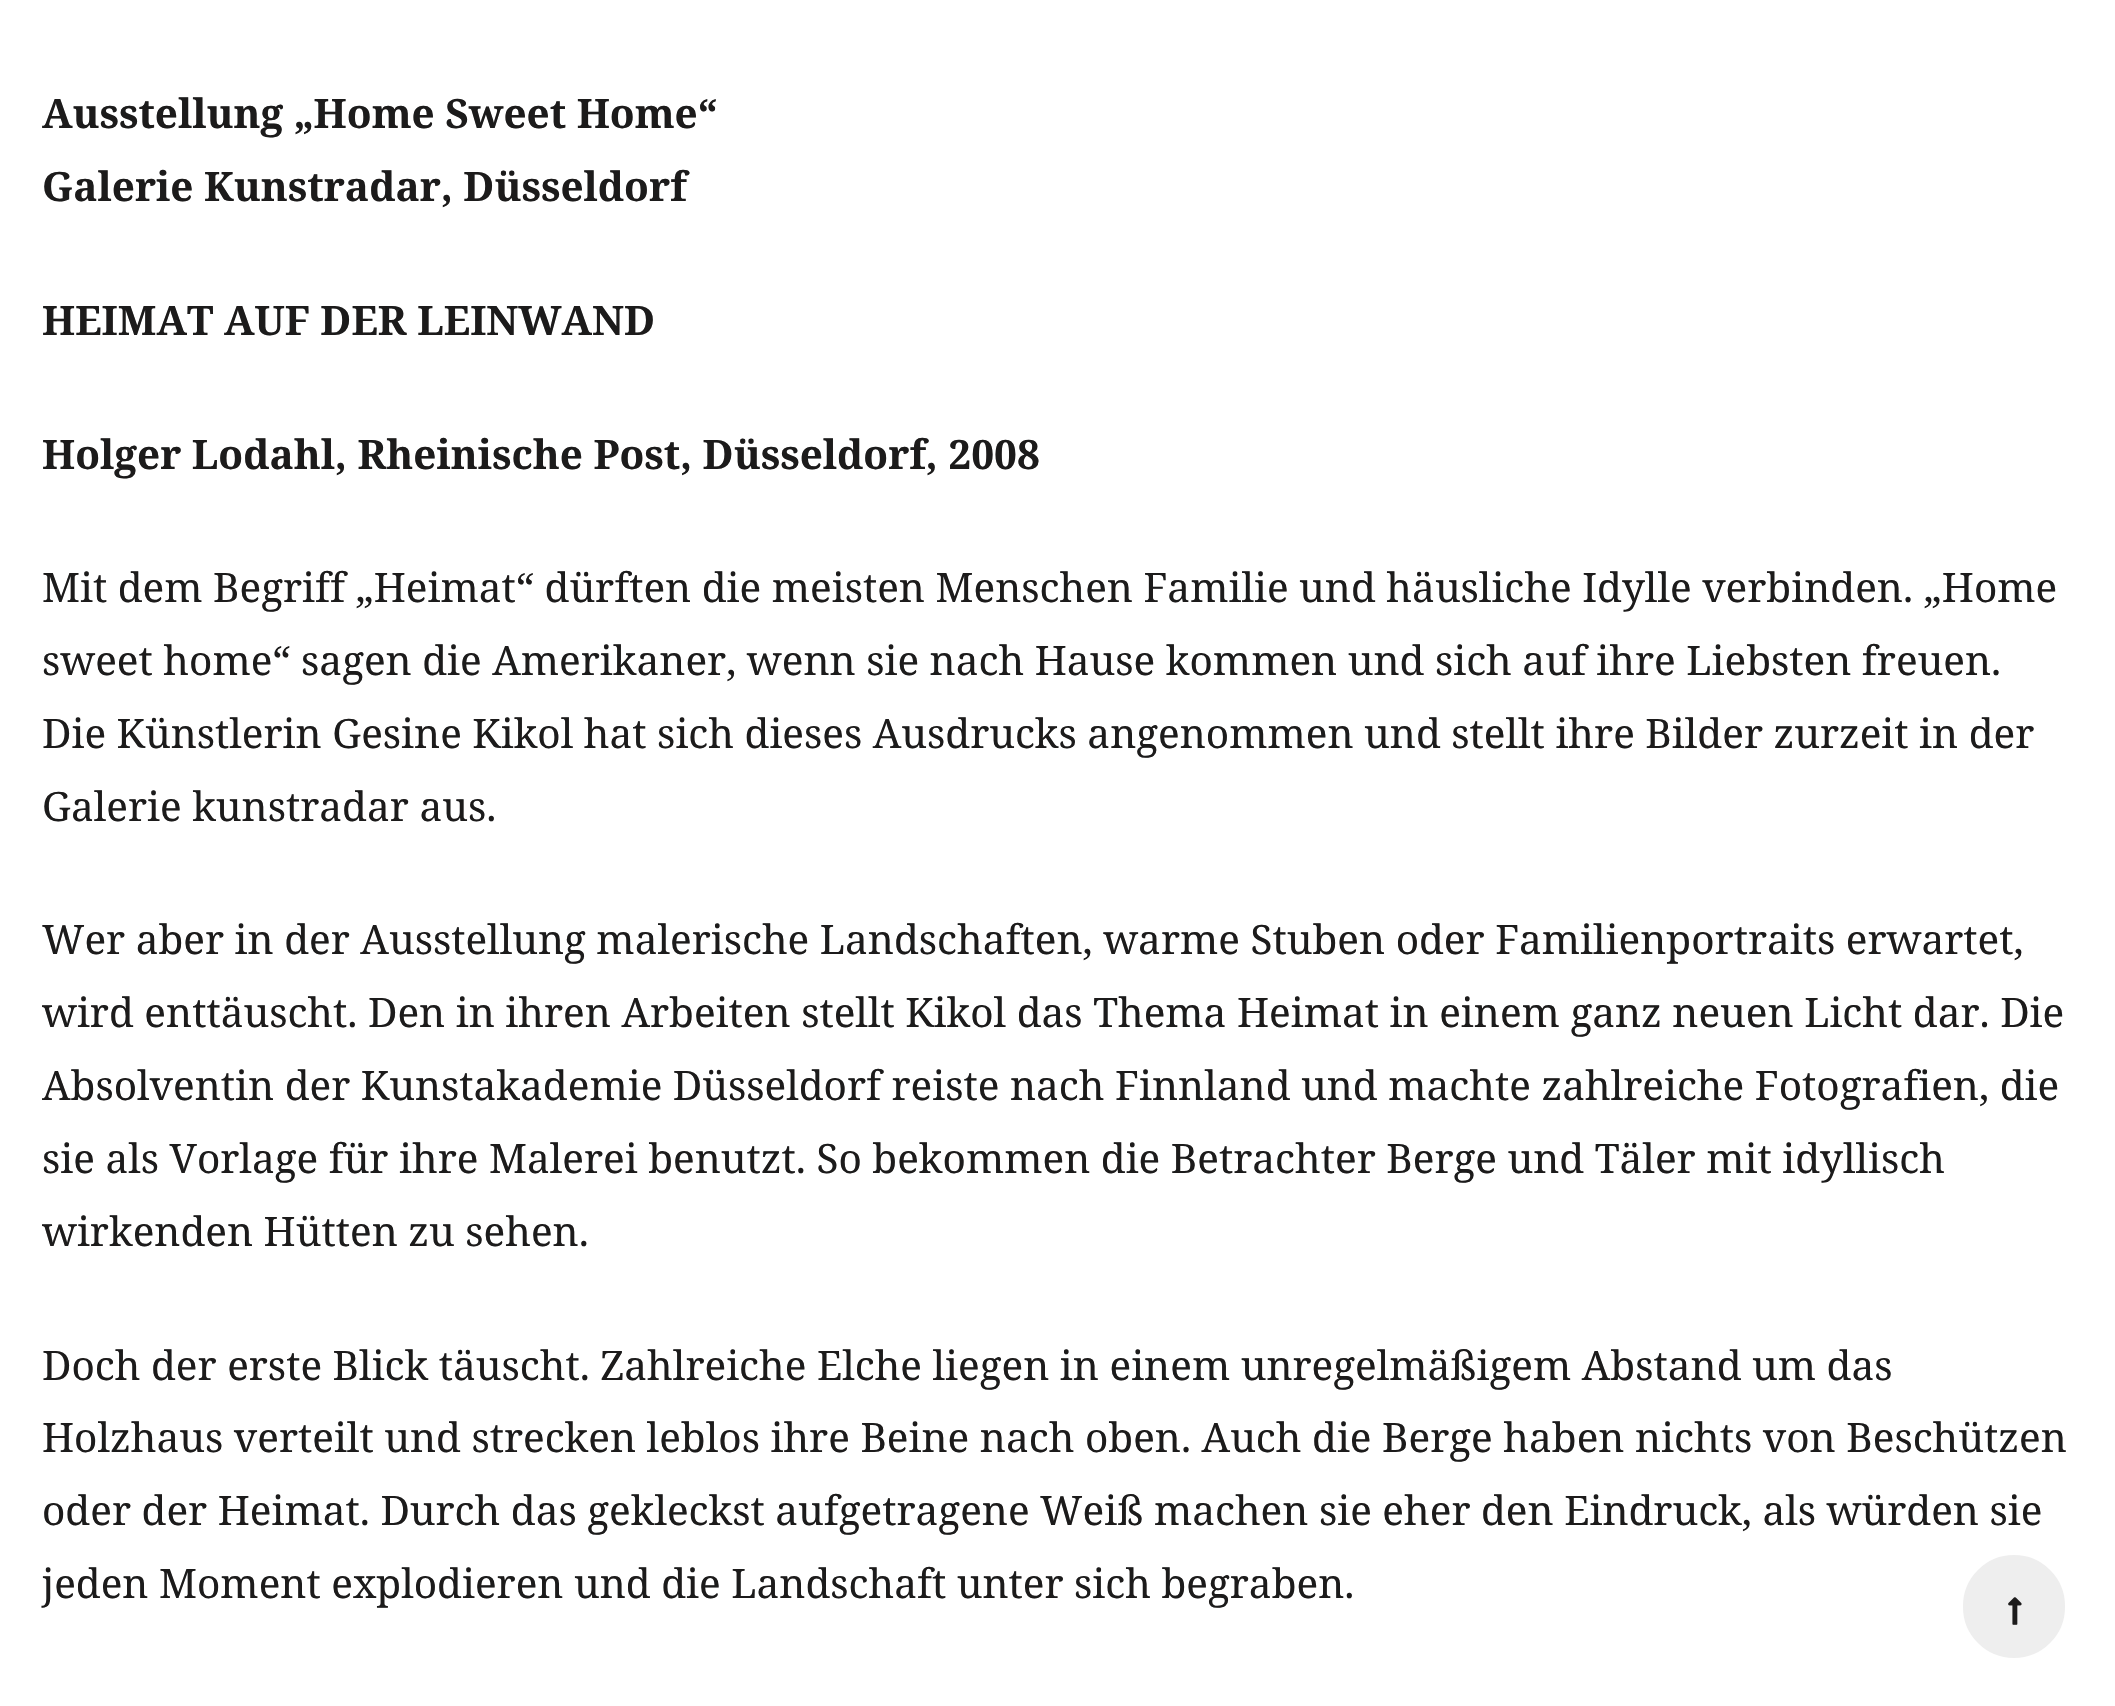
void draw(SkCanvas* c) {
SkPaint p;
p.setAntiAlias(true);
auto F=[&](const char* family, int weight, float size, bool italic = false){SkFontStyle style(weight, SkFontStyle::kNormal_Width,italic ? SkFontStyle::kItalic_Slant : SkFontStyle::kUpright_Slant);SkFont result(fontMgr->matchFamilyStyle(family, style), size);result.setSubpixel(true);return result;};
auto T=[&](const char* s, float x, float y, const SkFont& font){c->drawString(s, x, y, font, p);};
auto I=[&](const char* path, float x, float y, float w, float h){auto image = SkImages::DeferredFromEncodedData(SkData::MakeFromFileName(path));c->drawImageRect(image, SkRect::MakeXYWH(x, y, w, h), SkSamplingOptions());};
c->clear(0xffffffff);
auto f1 = F("Noto Serif",700,40.5);
p.setColor(0xff1c1b1b);
T("Ausstellung „Home Sweet Home“",42,128,f1);
T("Galerie Kunstradar, Düsseldorf",42,201,f1);
T("HEIMAT AUF DER LEINWAND",42,335,f1);
T("Holger Lodahl, Rheinische Post, Düsseldorf, 2008",42,469,f1);
auto f2 = F("Noto Serif",400,40.5);
T("Mit dem Begriff „Heimat“ dürften die meisten Menschen Familie und häusliche Idylle verbinden. „Home",42,602,f2);
T("sweet home“ sagen die Amerikaner, wenn sie nach Hause kommen und sich auf ihre Liebsten freuen.",42,675,f2);
T("Die Künstlerin Gesine Kikol hat sich dieses Ausdrucks angenommen und stellt ihre Bilder zurzeit in der",42,748,f2);
T("Galerie kunstradar aus.",42,821,f2);
T("Wer aber in der Ausstellung malerische Landschaften, warme Stuben oder Familienportraits erwartet,",42,954,f2);
T("wird enttäuscht. Den in ihren Arbeiten stellt Kikol das Thema Heimat in einem ganz neuen Licht dar. Die",42,1027,f2);
T("Absolventin der Kunstakademie Düsseldorf reiste nach Finnland und machte zahlreiche Fotografien, die",42,1100,f2);
T("sie als Vorlage für ihre Malerei benutzt. So bekommen die Betrachter Berge und Täler mit idyllisch",42,1173,f2);
T("wirkenden Hütten zu sehen.",42,1246,f2);
T("Doch der erste Blick täuscht. Zahlreiche Elche liegen in einem unregelmäßigem Abstand um das",42,1380,f2);
T("Holzhaus verteilt und strecken leblos ihre Beine nach oben. Auch die Berge haben nichts von Beschützen",42,1452,f2);
T("oder der Heimat. Durch das gekleckst aufgetragene Weiß machen sie eher den Eindruck, als würden sie",42,1525,f2);
T("jeden Moment explodieren und die Landschaft unter sich begraben.",42,1598,f2);
p.setColor(0xffeeeeee);
c->drawRoundRect(SkRect::MakeXYWH(1960.5,1552.5,107,108),53.5,53.5,p);
p.setStroke(true);
p.setStrokeWidth(5);
p.setColor(0xffffffff);
c->drawRoundRect(SkRect::MakeXYWH(1960.5,1552.5,107,108),53.5,53.5,p);
I("1.png",2008,1597,14,28);
}
